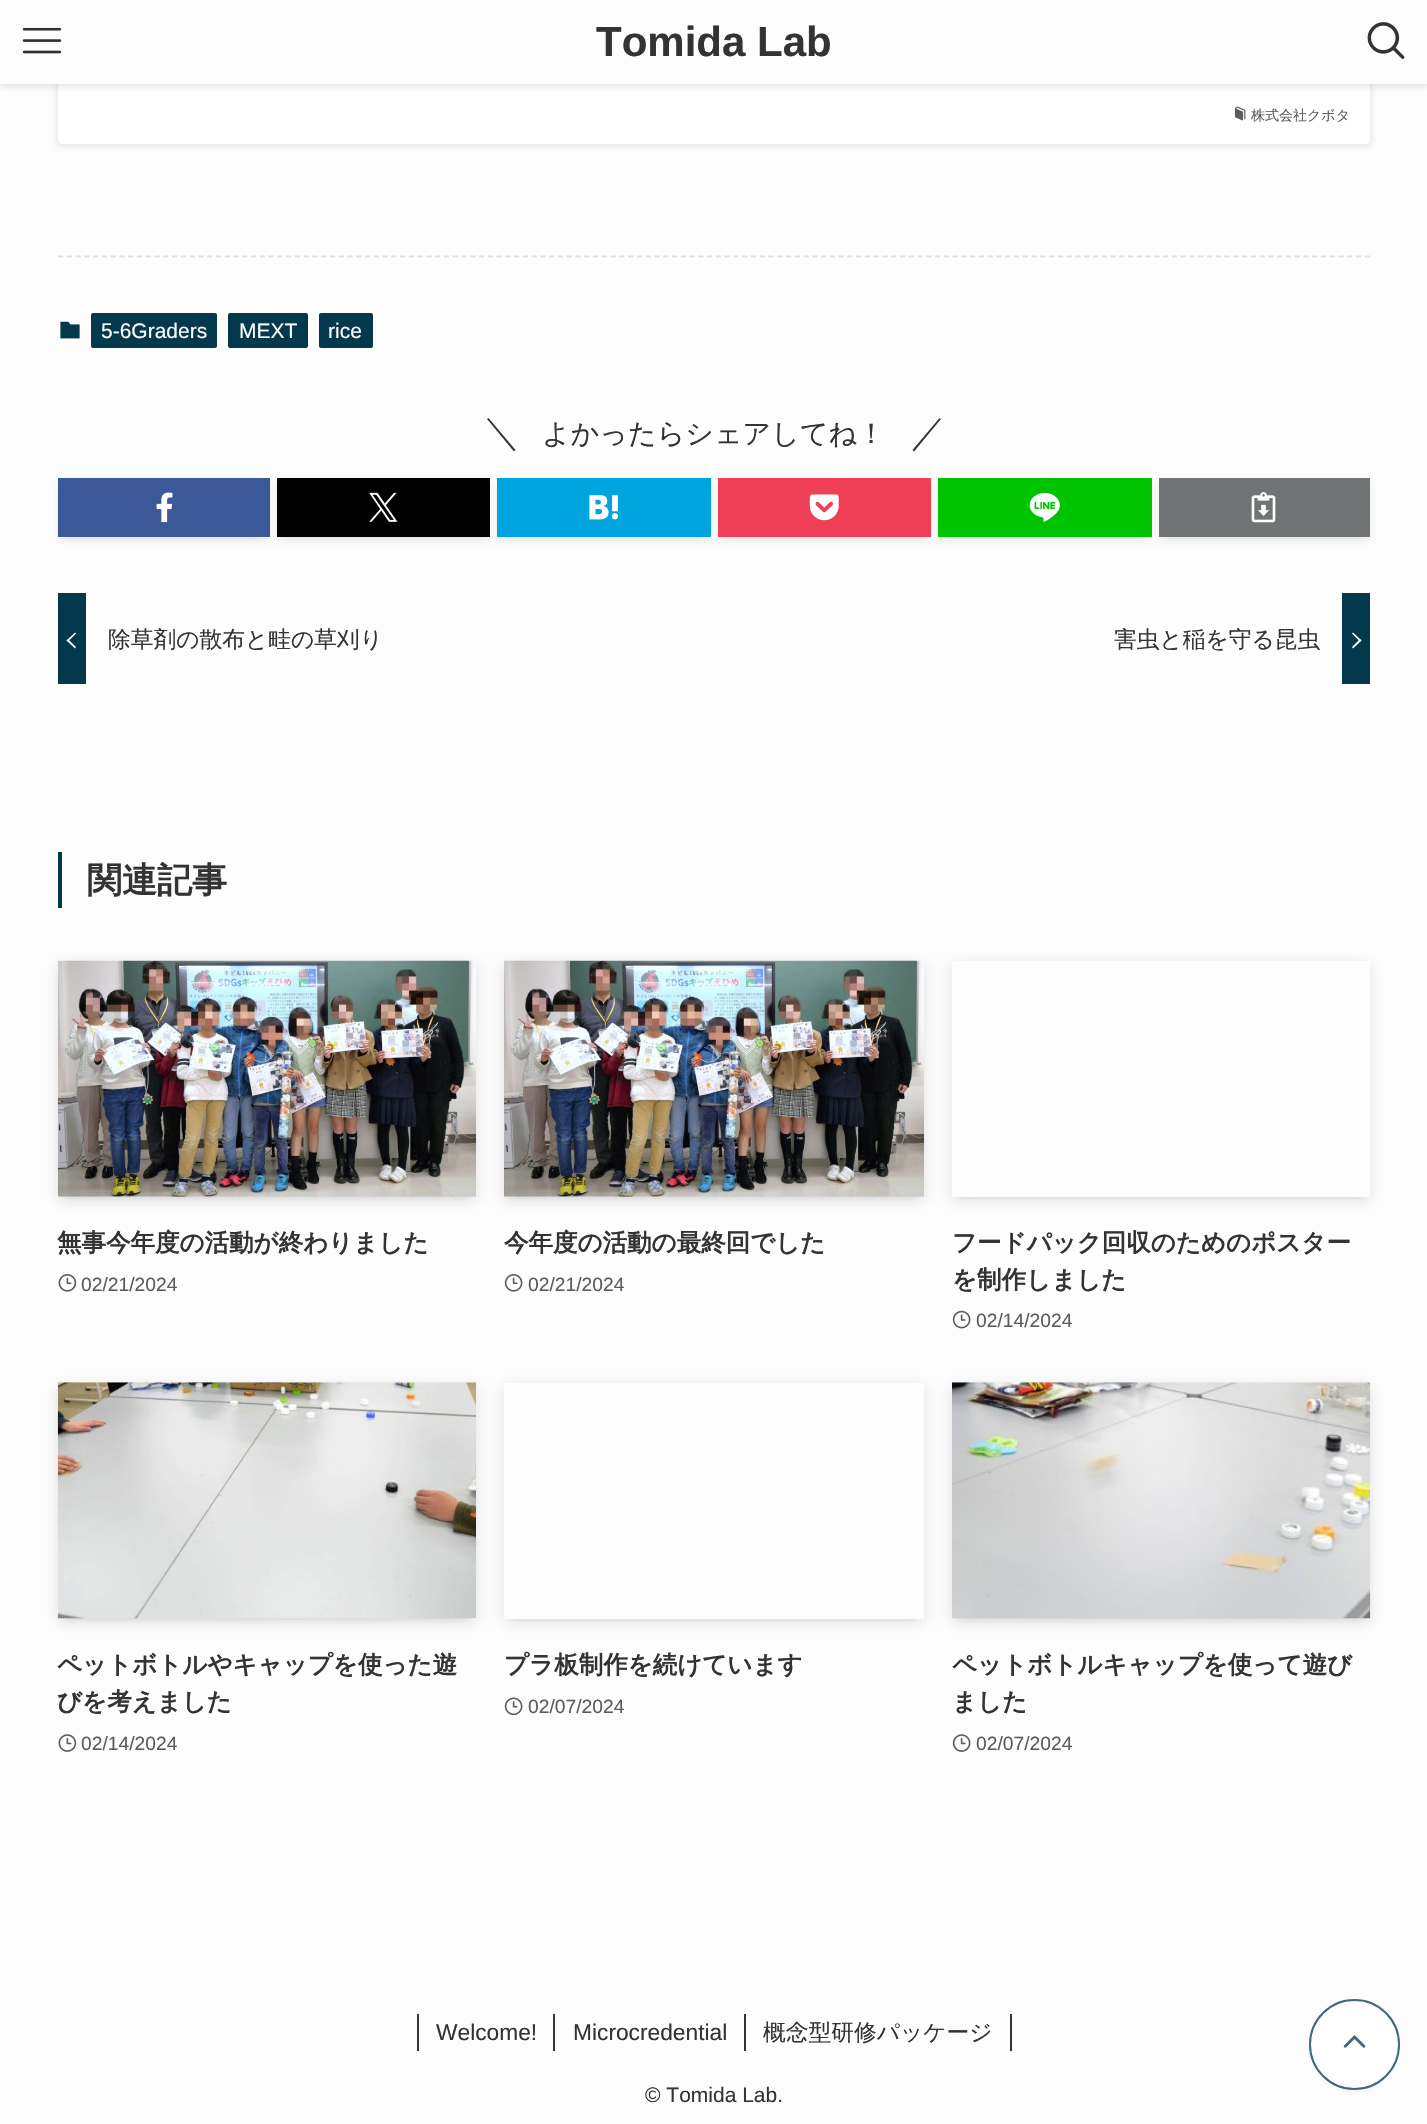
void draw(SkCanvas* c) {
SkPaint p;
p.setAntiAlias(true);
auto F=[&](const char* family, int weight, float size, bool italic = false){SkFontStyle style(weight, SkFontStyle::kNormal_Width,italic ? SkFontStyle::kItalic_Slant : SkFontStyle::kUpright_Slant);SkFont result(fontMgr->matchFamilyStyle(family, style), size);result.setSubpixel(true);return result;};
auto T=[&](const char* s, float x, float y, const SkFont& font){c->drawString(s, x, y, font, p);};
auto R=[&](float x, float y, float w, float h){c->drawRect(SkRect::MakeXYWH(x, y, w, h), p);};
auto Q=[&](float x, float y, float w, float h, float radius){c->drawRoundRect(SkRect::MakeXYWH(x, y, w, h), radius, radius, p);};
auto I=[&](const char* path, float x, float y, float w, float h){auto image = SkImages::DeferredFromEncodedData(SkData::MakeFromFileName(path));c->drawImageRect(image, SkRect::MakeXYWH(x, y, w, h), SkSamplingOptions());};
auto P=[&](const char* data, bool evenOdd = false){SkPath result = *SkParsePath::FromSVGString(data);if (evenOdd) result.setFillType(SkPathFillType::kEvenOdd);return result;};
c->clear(0xfffdfdfd);
p.setColor(0x14000000);
p.setMaskFilter(SkMaskFilter::MakeBlur(kNormal_SkBlurStyle, 2.5));
c->drawRoundRect(SkRect::MakeXYWH(56,-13,1316,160),5,5,p);
p.setMaskFilter(nullptr);
p.setColor(0xffffffff);
Q(58,-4,1312,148,4);
p.setColor(0x1f000000);
p.setMaskFilter(SkMaskFilter::MakeBlur(kNormal_SkBlurStyle, 3.5));
c->drawRect(SkRect::MakeXYWH(0,2,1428,84),p);
p.setMaskFilter(nullptr);
p.setColor(0xfffdfdfd);
R(0,0,1427,84);
I("1.png",22,27,40,27);
auto f1 = F("Liberation Sans",700,42);
p.setColor(0xff333333);
T("Tomida Lab",596,56,f1);
I("2.png",1367,22,38,37);
I("3.png",1234,106,12,15);
auto f2 = F("WenQuanYi Zen Hei",500,14);
p.setColor(0xff5b5b5b);
T("株式会社クボタ",1251,120,f2);
p.setStroke(true);
p.setStrokeWidth(1.8);
p.setColor(0xffe2e2e2);
p.setPathEffect(SkDashPathEffect::Make({{5.25f,3.52f}}, 0));
c->drawPath(P("M58 256.5h1312"),p);
p.setPathEffect(nullptr);
I("4.png",60,321,20,18);
p.setStroke(false);
p.setColor(0xff04384c);
Q(91,313,126,35,2);
auto f3 = F("Liberation Sans",400,21);
p.setColor(0xffffffff);
T("5-6Graders",101,338,f3);
p.setColor(0xff04384c);
Q(228,313,80,35,2);
p.setColor(0xffffffff);
T("MEXT",239,338,f3);
p.setColor(0xff04384c);
Q(319,313,54,35,2);
p.setColor(0xffffffff);
T("rice",328,338,f3);
p.setColor(0xff333333);
c->drawPath(P("M487 419l1.5-1l27 32l-1.5 1.5z"),p);
auto f4 = F("WenQuanYi Zen Hei",500,28);
T("よかったらシェアしてね！",542,443,f4);
c->drawPath(P("M939.5 418l1.5 1l-27 32.5l-1.5-1.5z"),p);
p.setColor(0x1a000000);
p.setMaskFilter(SkMaskFilter::MakeBlur(kNormal_SkBlurStyle, 3.5));
c->drawRect(SkRect::MakeXYWH(65,492,198,45),p);
p.setMaskFilter(nullptr);
p.setColor(0x0d000000);
p.setMaskFilter(SkMaskFilter::MakeBlur(kNormal_SkBlurStyle, 3.5));
c->drawRect(SkRect::MakeXYWH(58,481,212,60),p);
p.setMaskFilter(nullptr);
p.setColor(0xff3b5998);
R(58,478,212,59);
I("5.png",156,492,17,31);
p.setColor(0x1a000000);
p.setMaskFilter(SkMaskFilter::MakeBlur(kNormal_SkBlurStyle, 3.5));
c->drawRect(SkRect::MakeXYWH(284,492,199,45),p);
p.setMaskFilter(nullptr);
p.setColor(0x0d000000);
p.setMaskFilter(SkMaskFilter::MakeBlur(kNormal_SkBlurStyle, 3.5));
c->drawRect(SkRect::MakeXYWH(277,481,213,60),p);
p.setMaskFilter(nullptr);
p.setColor(0xff000000);
R(277,478,213,59);
I("6.png",369,492,29,30);
p.setColor(0x1a000000);
p.setMaskFilter(SkMaskFilter::MakeBlur(kNormal_SkBlurStyle, 3.5));
c->drawRect(SkRect::MakeXYWH(504,492,200,45),p);
p.setMaskFilter(nullptr);
p.setColor(0x0d000000);
p.setMaskFilter(SkMaskFilter::MakeBlur(kNormal_SkBlurStyle, 3.5));
c->drawRect(SkRect::MakeXYWH(497,481,214,60),p);
p.setMaskFilter(nullptr);
p.setColor(0xff00a4de);
R(497,478,214,59);
I("7.png",589,495,29,25);
p.setColor(0x1a000000);
p.setMaskFilter(SkMaskFilter::MakeBlur(kNormal_SkBlurStyle, 3.5));
c->drawRect(SkRect::MakeXYWH(725,492,199,45),p);
p.setMaskFilter(nullptr);
p.setColor(0x0d000000);
p.setMaskFilter(SkMaskFilter::MakeBlur(kNormal_SkBlurStyle, 3.5));
c->drawRect(SkRect::MakeXYWH(718,481,213,60),p);
p.setMaskFilter(nullptr);
p.setColor(0xffef3f56);
R(718,478,213,59);
I("8.png",809,494,30,27);
p.setColor(0x1a000000);
p.setMaskFilter(SkMaskFilter::MakeBlur(kNormal_SkBlurStyle, 3.5));
c->drawRect(SkRect::MakeXYWH(945,492,200,45),p);
p.setMaskFilter(nullptr);
p.setColor(0x0d000000);
p.setMaskFilter(SkMaskFilter::MakeBlur(kNormal_SkBlurStyle, 3.5));
c->drawRect(SkRect::MakeXYWH(938,481,214,60),p);
p.setMaskFilter(nullptr);
p.setColor(0xff00c300);
R(938,478,214,59);
I("9.png",1029,492,31,30);
p.setColor(0x1a000000);
p.setMaskFilter(SkMaskFilter::MakeBlur(kNormal_SkBlurStyle, 3.5));
c->drawRect(SkRect::MakeXYWH(1166,492,197,45),p);
p.setMaskFilter(nullptr);
p.setColor(0x0d000000);
p.setMaskFilter(SkMaskFilter::MakeBlur(kNormal_SkBlurStyle, 3.5));
c->drawRect(SkRect::MakeXYWH(1159,481,211,60),p);
p.setMaskFilter(nullptr);
p.setColor(0xff717475);
R(1159,478,211,59);
I("10.png",1251,492,25,31);
p.setColor(0xff04384c);
R(58,593,28,91);
p.setColor(0xffffffff);
c->drawPath(P("M68 639l8 8l-1 1.5l-8.5-8z"),p);
c->drawPath(P("M75 632.5l1 1l-8 8l-1.5-1z"),p);
auto f5 = F("WenQuanYi Zen Hei",500,22.75);
p.setColor(0xff333333);
T("除草剤の散布と畦の草刈り",108,647,f5);
p.setColor(0xff04384c);
R(1342,593,28,91);
p.setColor(0xff333333);
T("害虫と稲を守る昆虫",1114,647,f5);
p.setColor(0xffffffff);
c->drawPath(P("M1352 633.5l1-1l8.5 8l-1.5 1z"),p);
c->drawPath(P("M1352 647l8-8l1.5 1.5l-8.5 8z"),p);
p.setColor(0xff04384c);
R(58,852,4,56);
auto f6 = F("WenQuanYi Zen Hei",700,35);
p.setColor(0xff333333);
T("関連記事",87,892,f6);
p.setColor(0x1a000000);
p.setMaskFilter(SkMaskFilter::MakeBlur(kNormal_SkBlurStyle, 3.5));
c->drawRect(SkRect::MakeXYWH(65,975,404,222),p);
p.setMaskFilter(nullptr);
p.setMaskFilter(SkMaskFilter::MakeBlur(kNormal_SkBlurStyle, 7));
c->drawRect(SkRect::MakeXYWH(58,964,418,237),p);
p.setMaskFilter(nullptr);
I("11.png",57,960,419,237);
auto f7 = F("WenQuanYi Zen Hei",700,24.5);
p.setColor(0xff333333);
T("無事今年度の活動が終わりました",57,1251,f7);
I("12.png",58,1274,19,18);
auto f8 = F("Liberation Sans",400,19.25);
p.setColor(0xff5b5b5b);
T("02/21/2024",81,1291,f8);
p.setColor(0x1a000000);
p.setMaskFilter(SkMaskFilter::MakeBlur(kNormal_SkBlurStyle, 3.5));
c->drawRect(SkRect::MakeXYWH(511,975,406,222),p);
p.setMaskFilter(nullptr);
p.setMaskFilter(SkMaskFilter::MakeBlur(kNormal_SkBlurStyle, 7));
c->drawRect(SkRect::MakeXYWH(504,964,420,237),p);
p.setMaskFilter(nullptr);
I("13.png",504,960,420,237);
p.setColor(0xff333333);
T("今年度の活動の最終回でした",504,1251,f7);
I("14.png",504,1274,19,18);
p.setColor(0xff5b5b5b);
T("02/21/2024",528,1291,f8);
c->save();
c->clipRect(SkRect::MakeXYWH(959,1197,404,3));
p.setColor(0x1a000000);
p.setMaskFilter(SkMaskFilter::MakeBlur(kNormal_SkBlurStyle, 3.5));
c->drawRect(SkRect::MakeXYWH(959,975,404,222),p);
p.setMaskFilter(nullptr);
c->restore();
c->save();
c->clipPath(P("M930 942h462v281h-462zm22 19h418v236h-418z",true),true);
p.setMaskFilter(SkMaskFilter::MakeBlur(kNormal_SkBlurStyle, 7));
c->drawRect(SkRect::MakeXYWH(952,964,418,237),p);
p.setMaskFilter(nullptr);
c->restore();
p.setColor(0xff333333);
T("フードパック回収のためのポスター",952,1251,f7);
T("を制作しました",952,1288,f7);
I("15.png",952,1310,19,19);
p.setColor(0xff5b5b5b);
T("02/14/2024",976,1327,f8);
p.setColor(0x1a000000);
p.setMaskFilter(SkMaskFilter::MakeBlur(kNormal_SkBlurStyle, 3.5));
c->drawRect(SkRect::MakeXYWH(65,1397,404,222),p);
p.setMaskFilter(nullptr);
p.setMaskFilter(SkMaskFilter::MakeBlur(kNormal_SkBlurStyle, 7));
c->drawRect(SkRect::MakeXYWH(58,1386,418,236),p);
p.setMaskFilter(nullptr);
I("16.png",57,1382,419,237);
p.setColor(0xff333333);
T("ペットボトルやキャップを使った遊",57,1673,f7);
T("びを考えました",57,1710,f7);
I("17.png",58,1734,19,18);
p.setColor(0xff5b5b5b);
T("02/14/2024",81,1750,f8);
c->save();
c->clipRect(SkRect::MakeXYWH(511,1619,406,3));
p.setColor(0x1a000000);
p.setMaskFilter(SkMaskFilter::MakeBlur(kNormal_SkBlurStyle, 3.5));
c->drawRect(SkRect::MakeXYWH(511,1397,406,222),p);
p.setMaskFilter(nullptr);
c->restore();
c->save();
c->clipPath(P("M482 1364h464v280h-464zm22 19h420v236h-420z",true),true);
p.setMaskFilter(SkMaskFilter::MakeBlur(kNormal_SkBlurStyle, 7));
c->drawRect(SkRect::MakeXYWH(504,1386,420,236),p);
p.setMaskFilter(nullptr);
c->restore();
p.setColor(0xff333333);
T("プラ板制作を続けています",504,1673,f7);
I("18.png",504,1697,19,19);
p.setColor(0xff5b5b5b);
T("02/07/2024",528,1713,f8);
p.setColor(0x1a000000);
p.setMaskFilter(SkMaskFilter::MakeBlur(kNormal_SkBlurStyle, 3.5));
c->drawRect(SkRect::MakeXYWH(959,1397,404,222),p);
p.setMaskFilter(nullptr);
p.setMaskFilter(SkMaskFilter::MakeBlur(kNormal_SkBlurStyle, 7));
c->drawRect(SkRect::MakeXYWH(952,1386,418,236),p);
p.setMaskFilter(nullptr);
I("19.png",952,1382,419,237);
p.setColor(0xff333333);
T("ペットボトルキャップを使って遊び",952,1673,f7);
T("ました",952,1710,f7);
I("20.png",952,1734,19,18);
p.setColor(0xff5b5b5b);
T("02/07/2024",976,1750,f8);
p.setColor(0xff333333);
R(553,2014,2,37);
R(417,2014,2,37);
auto f9 = F("Liberation Sans",400,22.75);
T("Welcome!",436,2040,f9);
R(744,2014,2,37);
T("Microcredential",573,2040,f9);
R(1010,2014,2,37);
T("概念型研修パッケージ",763,2040,f5);
T("© Tomida Lab.",645,2102,f3);
p.setColor(0x1a3f3f3f);
p.setMaskFilter(SkMaskFilter::MakeBlur(kNormal_SkBlurStyle, 3.5));
c->drawRoundRect(SkRect::MakeXYWH(1316,2013,77,77),38.5,38.5,p);
p.setMaskFilter(nullptr);
p.setColor(0xffffffff);
c->drawCircle(1354.5,2044.5,44.5,p);
p.setStroke(true);
p.setStrokeWidth(2);
p.setColor(0xff426978);
c->drawCircle(1354.5,2044.5,44.5,p);
I("21.png",1343,2035,23,13);
}
